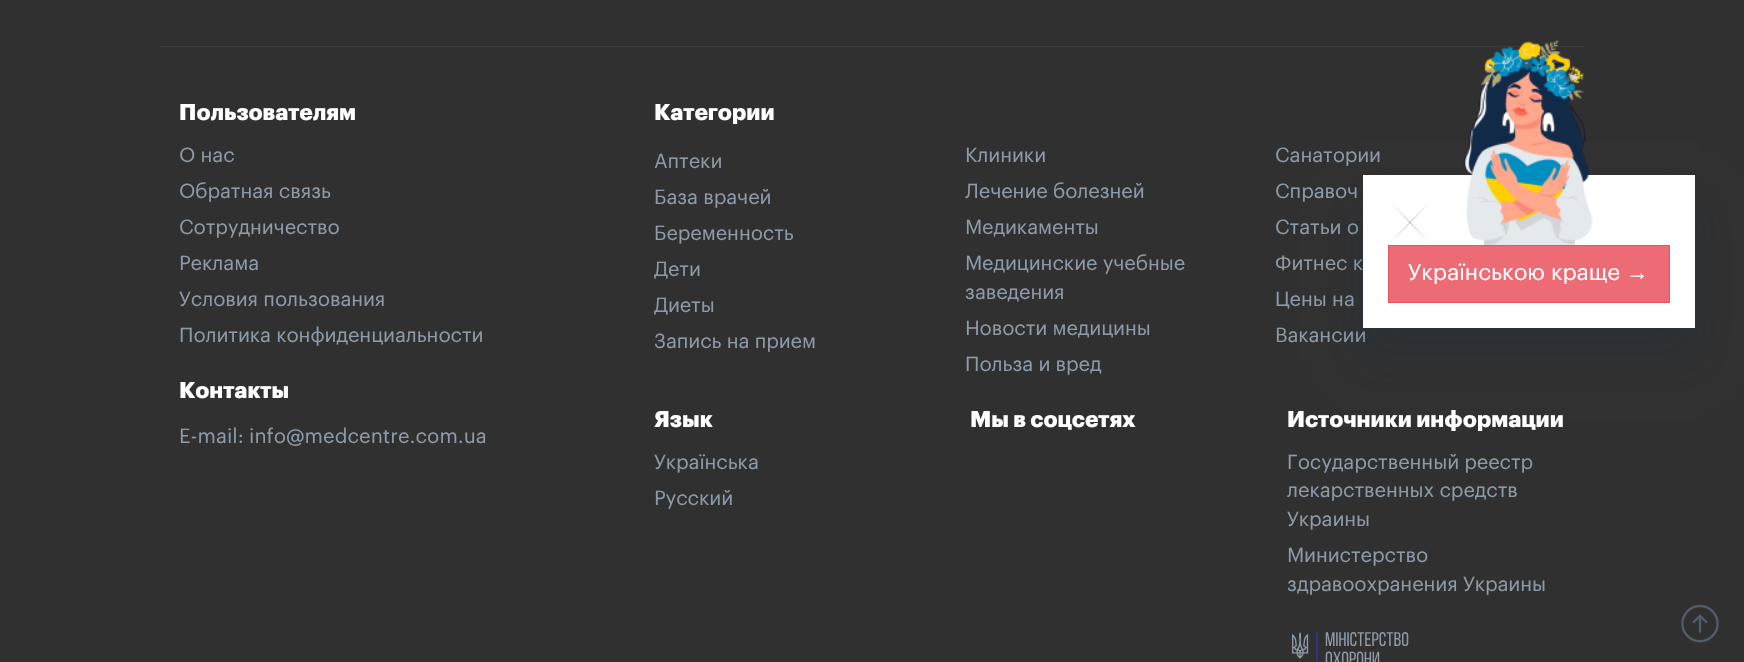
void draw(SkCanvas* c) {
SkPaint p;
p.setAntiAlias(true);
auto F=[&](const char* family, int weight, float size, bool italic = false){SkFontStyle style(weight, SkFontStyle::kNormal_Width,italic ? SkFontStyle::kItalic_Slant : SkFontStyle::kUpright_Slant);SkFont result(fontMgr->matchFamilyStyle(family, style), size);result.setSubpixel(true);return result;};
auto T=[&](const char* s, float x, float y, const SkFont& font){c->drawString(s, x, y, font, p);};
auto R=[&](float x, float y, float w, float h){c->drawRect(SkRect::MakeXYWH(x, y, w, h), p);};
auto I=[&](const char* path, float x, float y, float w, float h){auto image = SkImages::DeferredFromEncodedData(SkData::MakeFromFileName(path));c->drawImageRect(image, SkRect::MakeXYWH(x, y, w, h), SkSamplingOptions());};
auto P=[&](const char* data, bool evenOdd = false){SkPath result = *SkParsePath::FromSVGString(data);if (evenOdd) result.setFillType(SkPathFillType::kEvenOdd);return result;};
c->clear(0xff313030);
p.setColor(0xff3b3a3a);
R(160,46,1425,1);
auto f1 = F("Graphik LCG",700,22.5);
p.setColor(0xffffffff);
T("Пользователям",179,120,f1);
auto f2 = F("Graphik LCG",400,20);
p.setColor(0xff8d9aa8);
T("О нас",179,162,f2);
T("Обратная связь",179,198,f2);
T("Сотрудничество",179,234,f2);
T("Реклама",179,270,f2);
T("Условия пользования",179,306,f2);
T("Политика конфиденциальности",179,342,f2);
p.setColor(0xffffffff);
T("Контакты",179,398,f1);
p.setColor(0xff8d9aa8);
T("E-mail: info@medcentre.com.ua",179,443,f2);
p.setColor(0xffffffff);
T("Категории",654,120,f1);
p.setColor(0xff8d9aa8);
T("Аптеки",654,168,f2);
T("Клиники",965,162,f2);
T("Санатории",1275,162,f2);
T("База врачей",654,204,f2);
T("Лечение болезней",965,198,f2);
T("Справоч",1275,198,f2);
T("Беременность",654,240,f2);
T("Медикаменты",965,234,f2);
T("Статьи о",1275,234,f2);
T("Дети",654,276,f2);
T("Медицинские учебные",965,270,f2);
T("заведения",965,299,f2);
T("Фитнес к",1275,270,f2);
T("Диеты",654,312,f2);
T("Цены на",1275,306,f2);
T("Запись на прием",654,348,f2);
T("Новости медицины",965,335,f2);
T("Вакансии",1275,342,f2);
T("Польза и вред",965,371,f2);
p.setColor(0xffffffff);
T("Язык",654,427,f1);
p.setColor(0xff8d9aa8);
T("Українська",654,469,f2);
T("Русский",654,505,f2);
p.setColor(0xffffffff);
T("Мы в соцсетях",970,427,f1);
T("Источники информации",1287,427,f1);
p.setColor(0xff8d9aa8);
T("Государственный реестр",1287,469,f2);
T("лекарственных средств",1287,497,f2);
T("Украины",1287,526,f2);
T("Министерство",1287,562,f2);
T("здравоохранения Украины",1287,591,f2);
I("1.png",1292,632,117,30);
p.setColor(0x2606304e);
p.setMaskFilter(SkMaskFilter::MakeBlur(kNormal_SkBlurStyle, 20));
c->drawRect(SkRect::MakeXYWH(1359,201,340,160),p);
p.setMaskFilter(nullptr);
p.setColor(0xffffffff);
R(1363,175,332,153);
p.setStroke(true);
p.setStrokeWidth(1.2);
{
const SkColor colors[] = {0xffffffff,0xffcfd4da,0xffffffff};
const float stops[] = {0,.48,1};
const SkPoint ends[] = {{1390,201}, {1430,201}};
p.setShader(SkGradientShader::MakeLinear(ends, colors, stops, 3, SkTileMode::kClamp));
p.setAlpha(255);
}
c->drawPath(P("M1431 201l-42 43"),p);
{
const SkColor colors[] = {0x00112a48,0x33112a48,0x00112a48};
const float stops[] = {0,.48,1};
const SkPoint ends[] = {{1430,201}, {1390,201}};
p.setShader(SkGradientShader::MakeLinear(ends, colors, stops, 3, SkTileMode::kClamp));
p.setAlpha(255);
}
c->drawPath(P("M1389 201l42 43"),p);
I("2.png",1463,40,130,205);
p.setStroke(false);
p.setShader(nullptr);
p.setColor(0xffed6b75);
c->drawRect(SkRect::MakeXYWH(1388.5,245.5,281,57),p);
p.setStroke(true);
p.setStrokeWidth(1);
p.setColor(0xffea5460);
c->drawRect(SkRect::MakeXYWH(1388.5,245.5,281,57),p);
auto f3 = F("Graphik LCG",400,22.5);
p.setStroke(false);
p.setColor(0xffffffff);
T("Українською краще",1408,280,f3);
auto f4 = F("Liberation Sans",400,22.5);
T("→",1626,280,f4);
I("3.png",1681,604,38,39);
}
